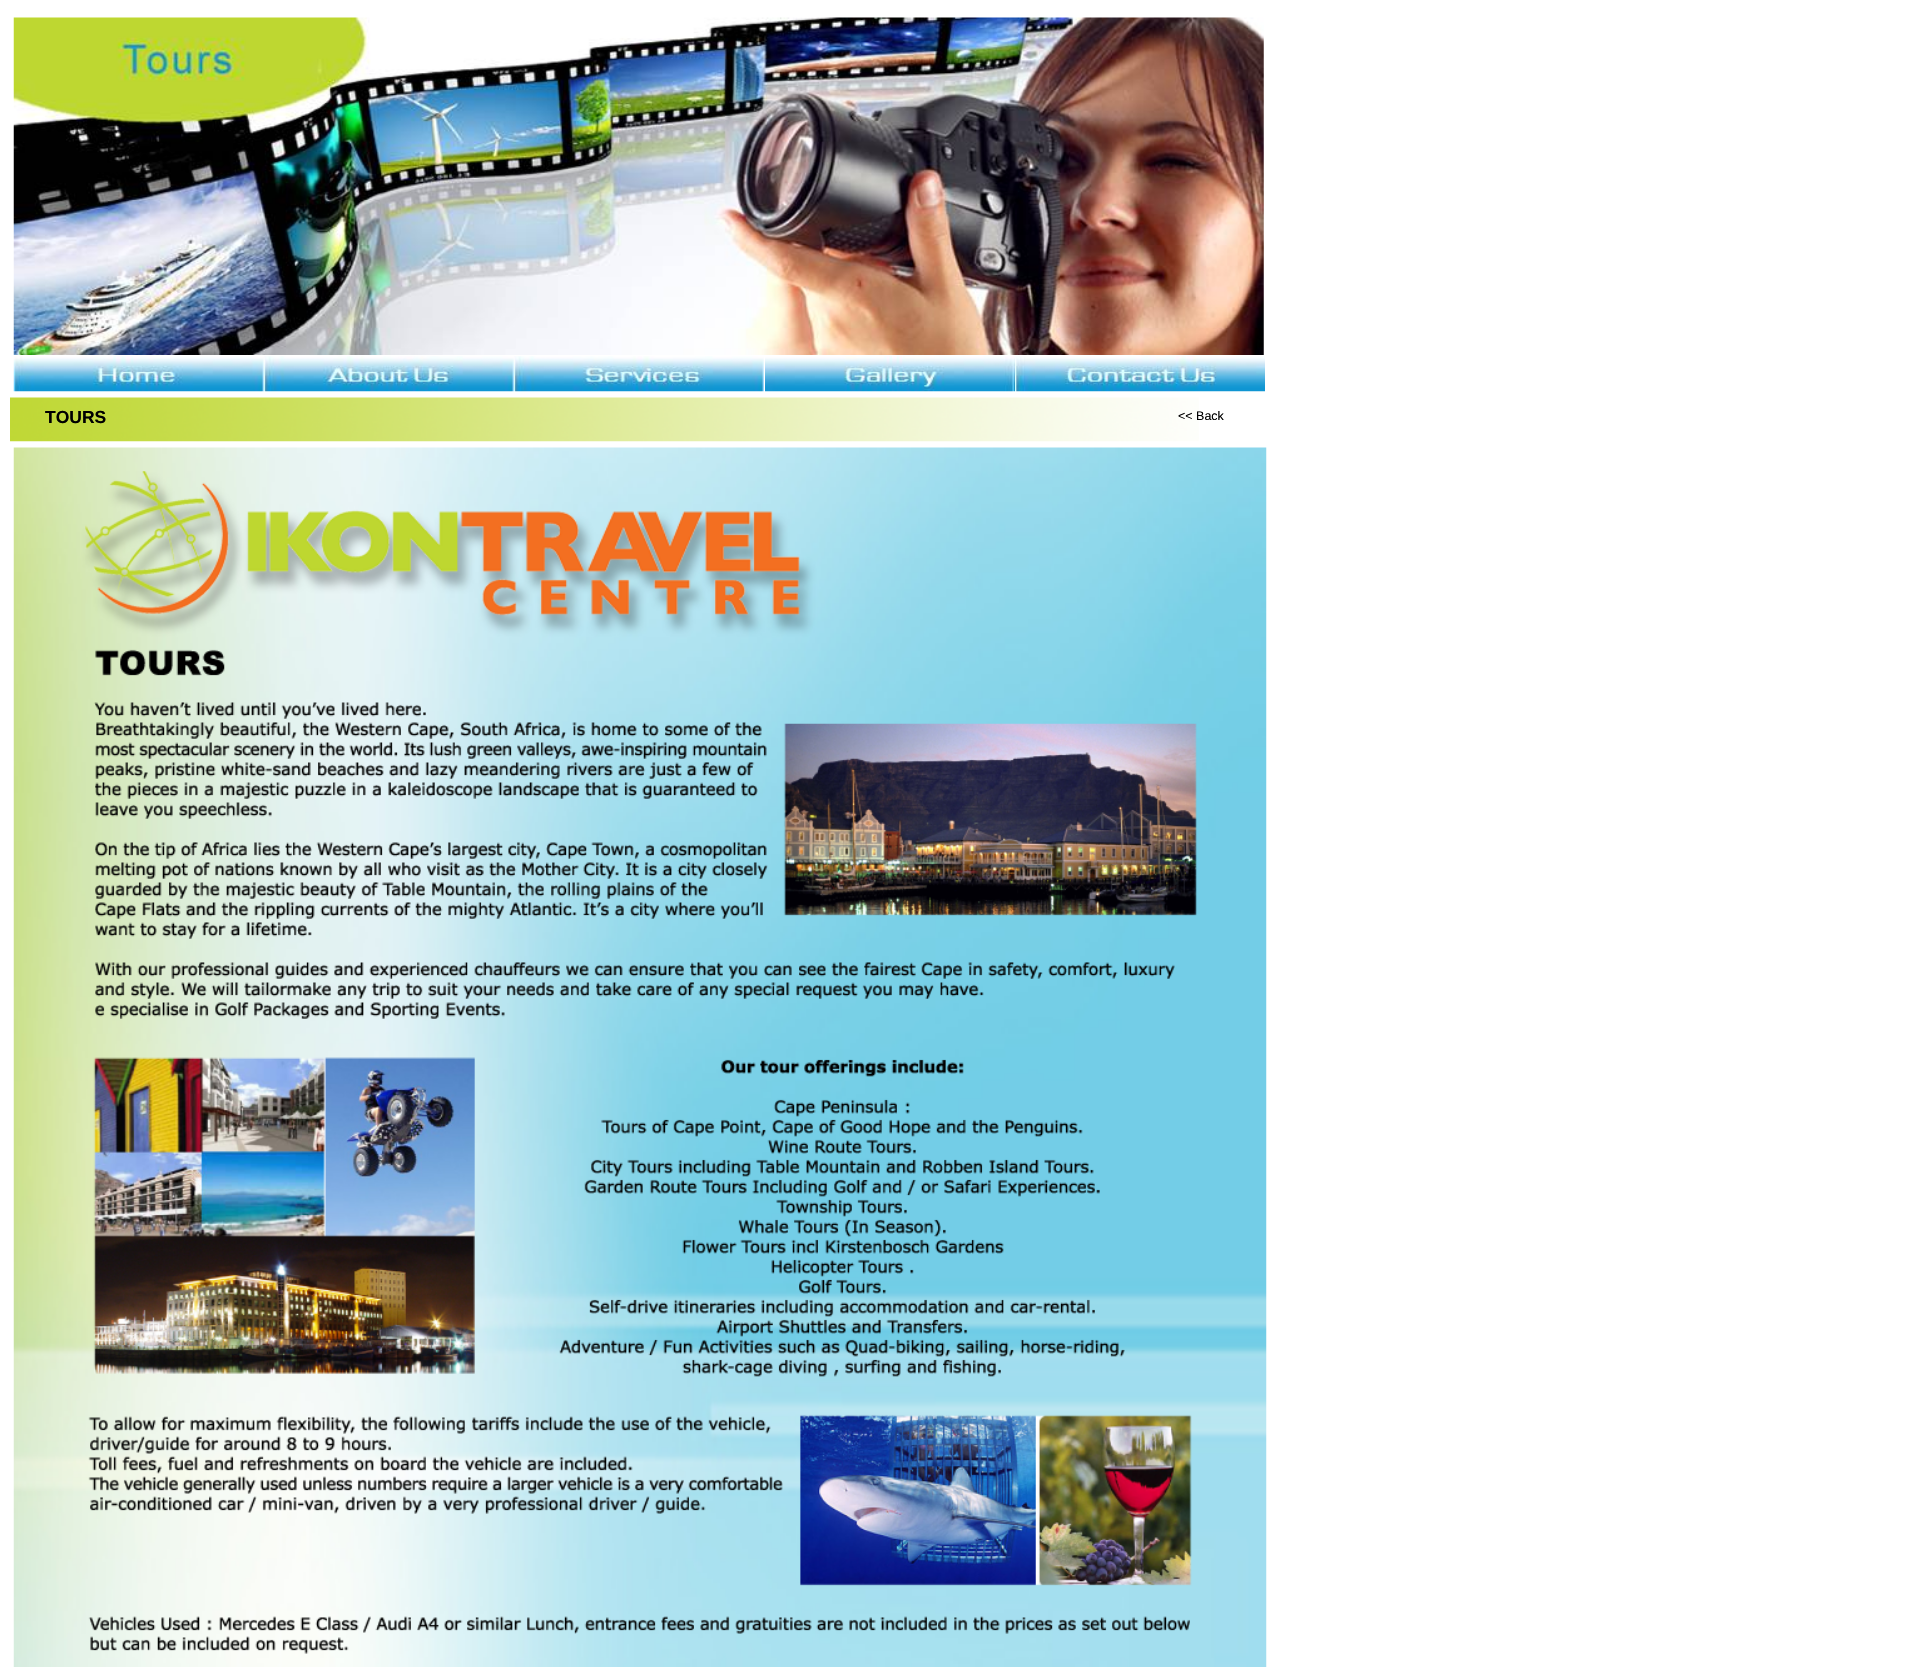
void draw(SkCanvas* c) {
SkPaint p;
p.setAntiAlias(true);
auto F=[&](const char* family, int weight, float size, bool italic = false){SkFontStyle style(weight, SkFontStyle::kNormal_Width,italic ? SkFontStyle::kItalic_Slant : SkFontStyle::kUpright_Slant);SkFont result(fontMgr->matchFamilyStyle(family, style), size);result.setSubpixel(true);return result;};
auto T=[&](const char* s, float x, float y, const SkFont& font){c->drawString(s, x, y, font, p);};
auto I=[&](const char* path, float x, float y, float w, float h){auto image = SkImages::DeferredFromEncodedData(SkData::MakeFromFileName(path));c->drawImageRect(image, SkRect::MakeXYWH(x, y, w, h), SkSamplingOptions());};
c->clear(0xffffffff);
I("1.png",13,17,1251,338);
I("2.png",13,356,251,36);
I("4.png",513,356,251,36);
I("3.png",263,356,251,36);
I("5.png",765,356,250,36);
I("6.png",1015,356,250,36);
I("7.png",10,397,1189,45);
auto f1 = F("Liberation Sans",700,17.5);
p.setColor(0xff000000);
T("TOURS",45,423,f1);
auto f2 = F("Liberation Sans",400,12.5);
T("<< Back",1178,420,f2);
I("8.png",13,447,1254,1220);
}
